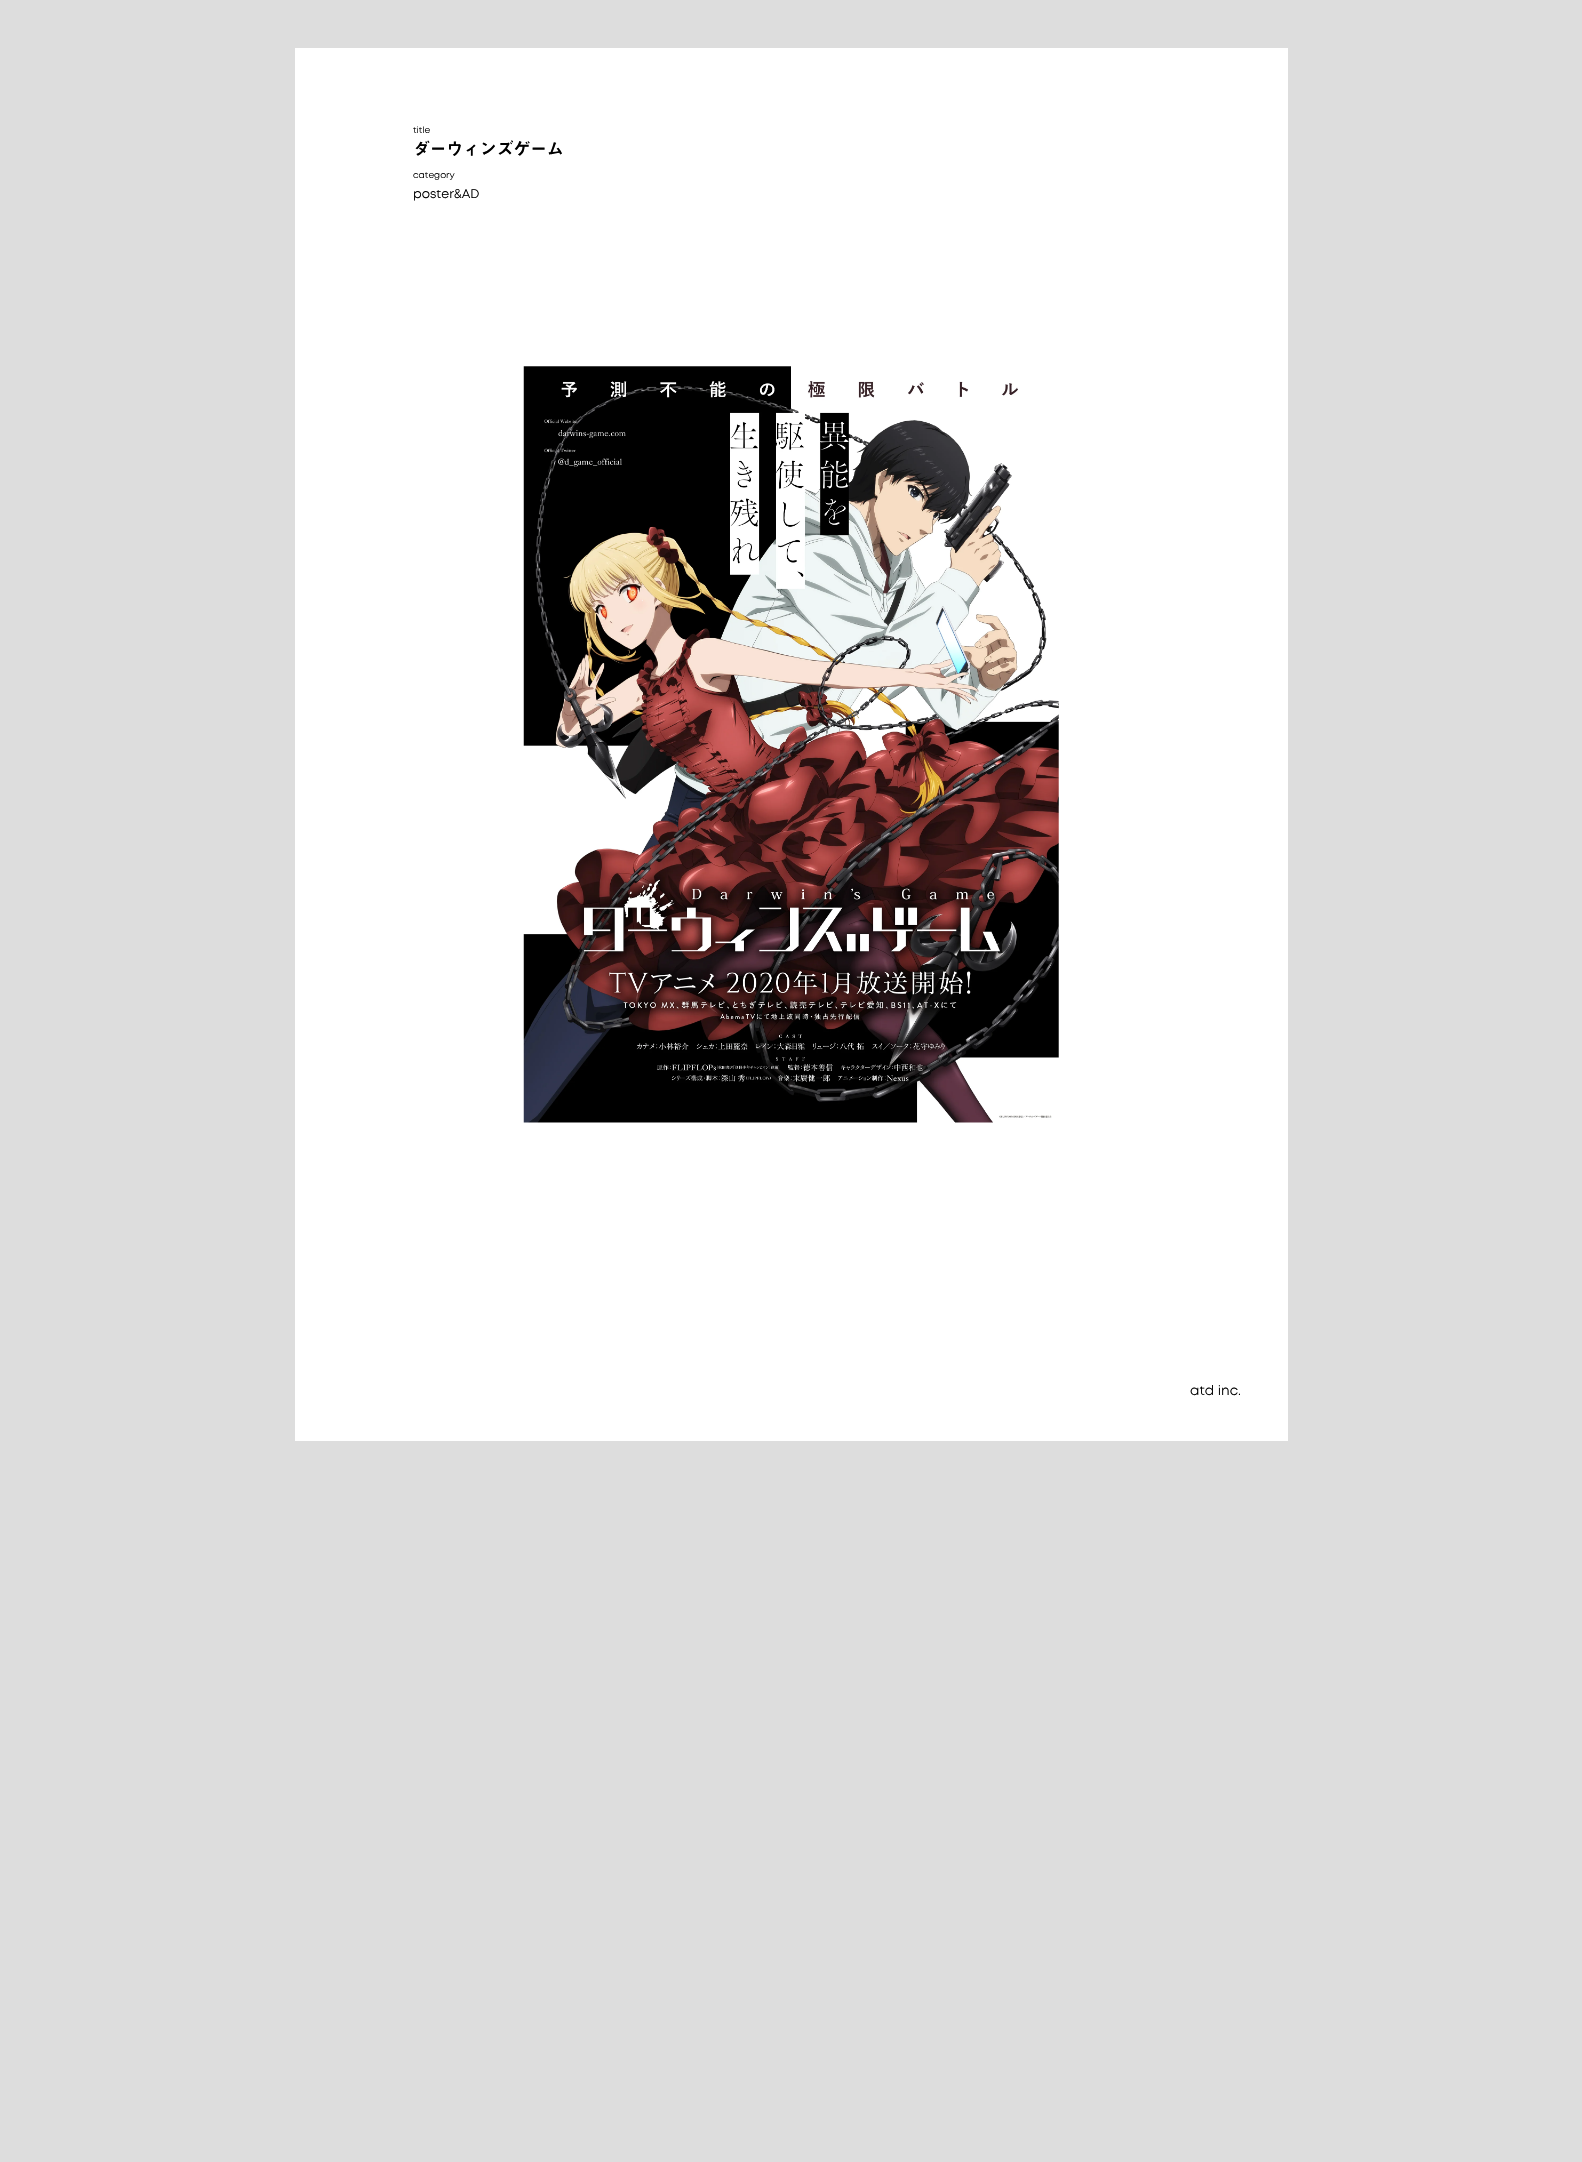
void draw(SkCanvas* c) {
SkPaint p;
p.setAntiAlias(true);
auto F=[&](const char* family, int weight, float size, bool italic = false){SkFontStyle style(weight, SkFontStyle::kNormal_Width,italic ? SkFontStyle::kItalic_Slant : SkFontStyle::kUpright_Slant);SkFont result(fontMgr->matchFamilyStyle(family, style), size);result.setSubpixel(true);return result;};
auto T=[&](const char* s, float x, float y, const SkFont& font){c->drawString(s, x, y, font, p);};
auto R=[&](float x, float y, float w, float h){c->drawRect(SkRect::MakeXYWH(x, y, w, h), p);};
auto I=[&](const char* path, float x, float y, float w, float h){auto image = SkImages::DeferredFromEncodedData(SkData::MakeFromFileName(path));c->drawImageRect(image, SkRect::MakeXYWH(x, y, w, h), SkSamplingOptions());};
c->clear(0xffdddddd);
p.setColor(0xffffffff);
R(295,48,993,1393);
auto f1 = F("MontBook",400,9);
p.setColor(0xff000000);
T("title",413,133,f1);
auto f2 = F("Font",600,16.75);
T("ダーウィンズゲーム",413,155,f2);
T("category",413,178,f1);
auto f3 = F("MontBook",400,12.5);
T("poster&AD",413,198,f3);
I("1.png",523,366,536,757);
auto f4 = F("MontBook",400,13.5);
T("atd inc.",1190,1395,f4);
}
